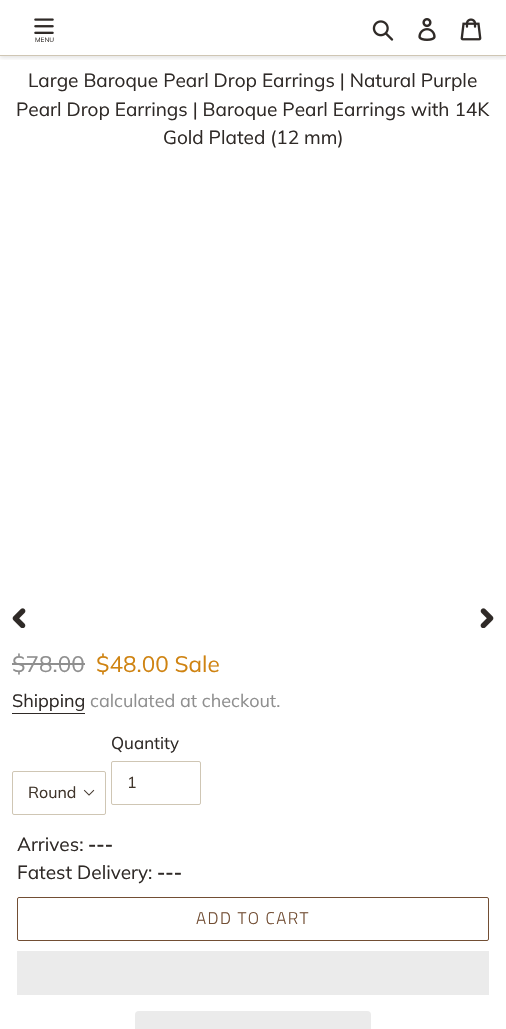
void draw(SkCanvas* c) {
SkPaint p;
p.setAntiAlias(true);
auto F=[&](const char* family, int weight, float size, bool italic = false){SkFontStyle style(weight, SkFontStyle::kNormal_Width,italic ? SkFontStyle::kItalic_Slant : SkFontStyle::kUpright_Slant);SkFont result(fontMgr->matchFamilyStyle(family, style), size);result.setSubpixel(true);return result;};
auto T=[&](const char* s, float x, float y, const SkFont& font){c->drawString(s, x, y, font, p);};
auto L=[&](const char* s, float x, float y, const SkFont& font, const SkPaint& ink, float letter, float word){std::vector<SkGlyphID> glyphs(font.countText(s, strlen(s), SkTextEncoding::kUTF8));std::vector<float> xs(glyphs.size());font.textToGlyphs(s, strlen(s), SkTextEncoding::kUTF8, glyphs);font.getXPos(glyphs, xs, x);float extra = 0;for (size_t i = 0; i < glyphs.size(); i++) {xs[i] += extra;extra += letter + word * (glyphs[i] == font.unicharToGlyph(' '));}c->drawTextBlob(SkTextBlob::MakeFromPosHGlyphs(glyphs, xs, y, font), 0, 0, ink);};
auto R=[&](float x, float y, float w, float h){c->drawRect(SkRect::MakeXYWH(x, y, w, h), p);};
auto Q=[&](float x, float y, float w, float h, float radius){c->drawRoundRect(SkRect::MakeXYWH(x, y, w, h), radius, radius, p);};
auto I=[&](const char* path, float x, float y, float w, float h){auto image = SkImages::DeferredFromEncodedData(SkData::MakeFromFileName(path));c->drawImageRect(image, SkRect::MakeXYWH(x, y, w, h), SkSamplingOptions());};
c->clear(0xffffffff);
c->save();
c->clipRect(SkRect::MakeXYWH(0,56,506,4));
p.setColor(0x1a000000);
p.setMaskFilter(SkMaskFilter::MakeBlur(kNormal_SkBlurStyle, 2));
c->drawRect(SkRect::MakeXYWH(0,2,506,56),p);
p.setMaskFilter(nullptr);
c->restore();
p.setColor(0xffcfc6b4);
R(0,55,506,1);
I("1.png",34,18,20,16);
auto f1 = F("Muli",400,6.5);
p.setColor(0xff2f2a27);
T("MENU",35,42,f1);
I("2.png",372,20,22,21);
I("3.png",418,18,18,23);
I("4.png",460,18,22,23);
auto f2 = F("Muli",400,19);
T("Large Baroque Pearl Drop Earrings | Natural Purple",28,87,f2);
T("Pearl Drop Earrings | Baroque Pearl Earrings with 14K",16,116,f2);
T("Gold Plated (12 mm)",163,144,f2);
I("5.png",12,608,14,20);
I("6.png",480,608,14,20);
auto f3 = F("Muli",400,22.5);
p.setColor(0xff8f8f8f);
T("$78.00",12,672,f3);
R(12,663,73,2);
p.setColor(0xffcf8311);
T("$48.00 Sale",96,672,f3);
auto f4 = F("Muli",400,18);
p.setColor(0xff2f2a27);
T("Shipping",12,707,f4);
R(12,713,73,1);
p.setColor(0xff8f8f8f);
T("calculated at checkout.",90,707,f4);
auto f5 = F("Muli",400,17);
p.setColor(0xff2f2a27);
T("Quantity",111,749,f5);
p.setStroke(true);
p.setStrokeWidth(1);
p.setColor(0xffcfc6b4);
c->drawRoundRect(SkRect::MakeXYWH(111.5,761.5,89,43),1.5,1.5,p);
auto f6 = F("Muli",400,16);
p.setStroke(false);
p.setColor(0xff40352b);
T("1",127,788,f6);
I("7.png",83,789,12,7);
p.setStroke(true);
p.setColor(0xffcfc6b4);
c->drawRoundRect(SkRect::MakeXYWH(12.5,771.5,93,43),1.5,1.5,p);
p.setStroke(false);
p.setColor(0xff40352b);
T("Round",28,798,f6);
p.setColor(0xff2f2a27);
T("Arrives:",17,851,f2);
auto f7 = F("Muli",700,19);
T("---",88,851,f7);
T("Fatest Delivery:",17,879,f2);
T("---",157,879,f7);
p.setStroke(true);
p.setColor(0xff724e34);
c->drawRoundRect(SkRect::MakeXYWH(17.5,897.5,471,43),1.5,1.5,p);
auto f8 = F("Titillium Web",300,17);
p.setStroke(false);
L("ADD TO CART",196,924,f8,p,1.4,0);
p.setColor(0xffebebeb);
R(17,951,472,44);
Q(135,1011,236,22,4);
}
